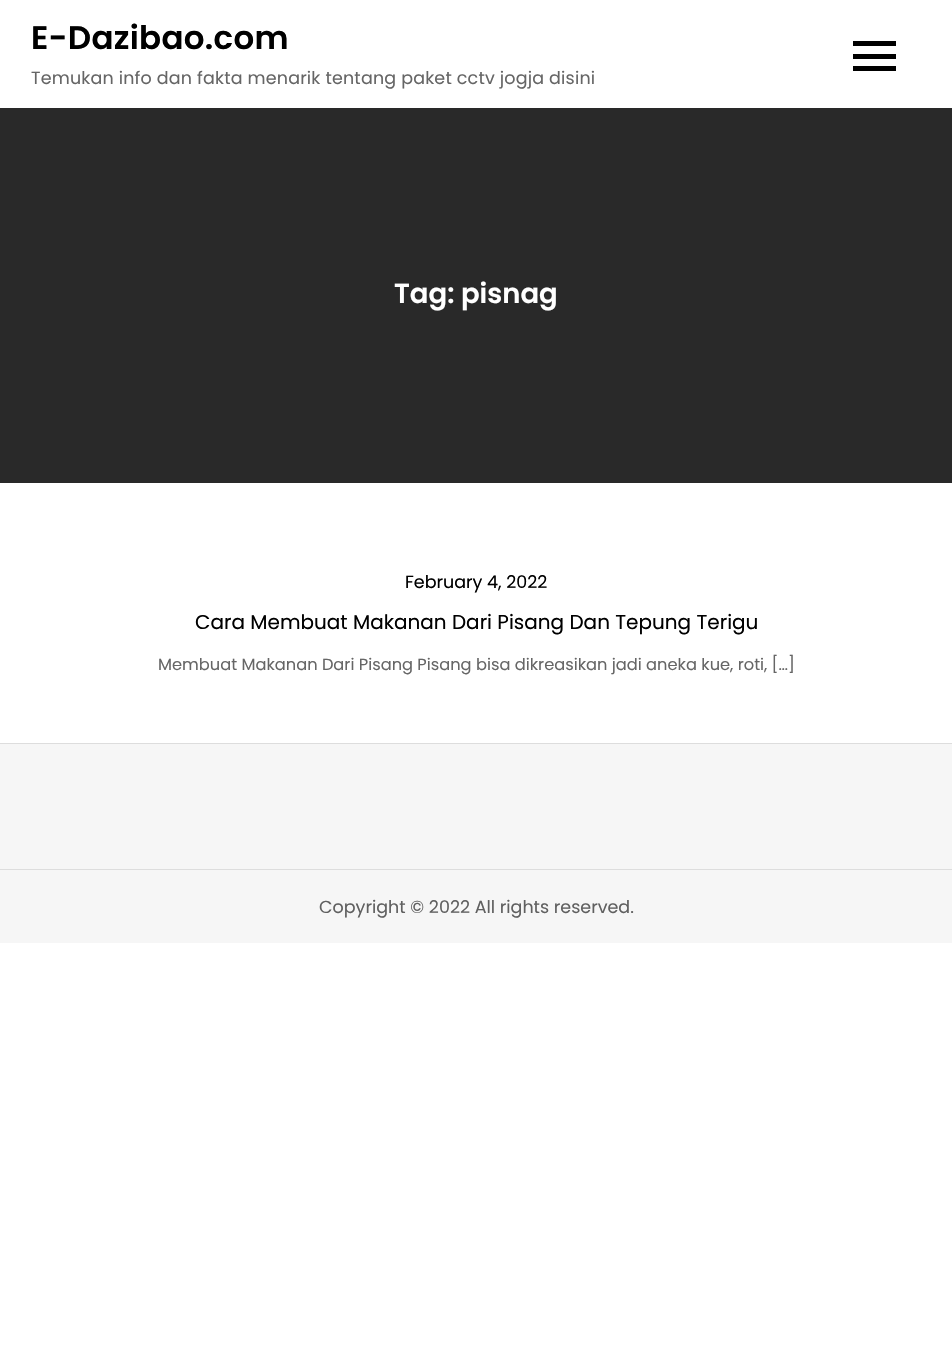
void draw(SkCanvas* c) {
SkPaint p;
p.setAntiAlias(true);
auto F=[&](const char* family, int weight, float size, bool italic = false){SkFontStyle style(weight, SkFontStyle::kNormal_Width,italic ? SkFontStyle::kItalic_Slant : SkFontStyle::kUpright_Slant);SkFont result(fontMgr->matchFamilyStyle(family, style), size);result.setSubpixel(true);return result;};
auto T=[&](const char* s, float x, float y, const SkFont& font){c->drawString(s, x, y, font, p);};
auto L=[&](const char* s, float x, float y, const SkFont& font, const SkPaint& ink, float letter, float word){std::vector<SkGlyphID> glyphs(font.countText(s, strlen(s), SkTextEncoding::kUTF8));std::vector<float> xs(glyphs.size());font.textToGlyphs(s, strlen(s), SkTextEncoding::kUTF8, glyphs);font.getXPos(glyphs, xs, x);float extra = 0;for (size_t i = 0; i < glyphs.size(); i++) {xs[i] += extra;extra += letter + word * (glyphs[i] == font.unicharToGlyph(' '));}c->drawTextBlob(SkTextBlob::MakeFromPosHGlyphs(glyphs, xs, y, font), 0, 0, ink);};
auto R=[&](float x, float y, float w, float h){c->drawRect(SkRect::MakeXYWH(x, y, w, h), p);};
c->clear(0xffffffff);
auto f1 = F("Poppins",600,32.5);
p.setColor(0xff000000);
L("E-Dazibao.com",31,49,f1,p,.3,0);
auto f2 = F("Poppins",400,17.5);
p.setColor(0xff666666);
L("Temukan info dan fakta menarik tentang paket cctv jogja disini",31,84,f2,p,.18,0);
p.setColor(0xff000000);
R(853,54,43,5);
R(853,41,43,5);
R(853,66,43,5);
p.setColor(0xff292929);
R(0,108,952,375);
auto f3 = F("Poppins",600,27.5);
p.setColor(0xffffffff);
T("Tag: pisnag",394,303,f3);
p.setColor(0xff000000);
T("February 4, 2022",405,588,f2);
auto f4 = F("Poppins",400,20);
T("Cara Membuat Makanan Dari Pisang Dan Tepung Terigu",195,629,f4);
auto f5 = F("Poppins",400,16.25);
p.setColor(0xff666666);
T("Membuat Makanan Dari Pisang Pisang bisa dikreasikan jadi aneka kue, roti, […]",158,670,f5);
p.setColor(0xfff6f6f6);
R(0,744,952,199);
p.setColor(0xffdddddd);
R(0,743,952,1);
R(0,869,952,1);
p.setColor(0xff606060);
T("Copyright © 2022 All rights reserved.",319,913,f2);
}
